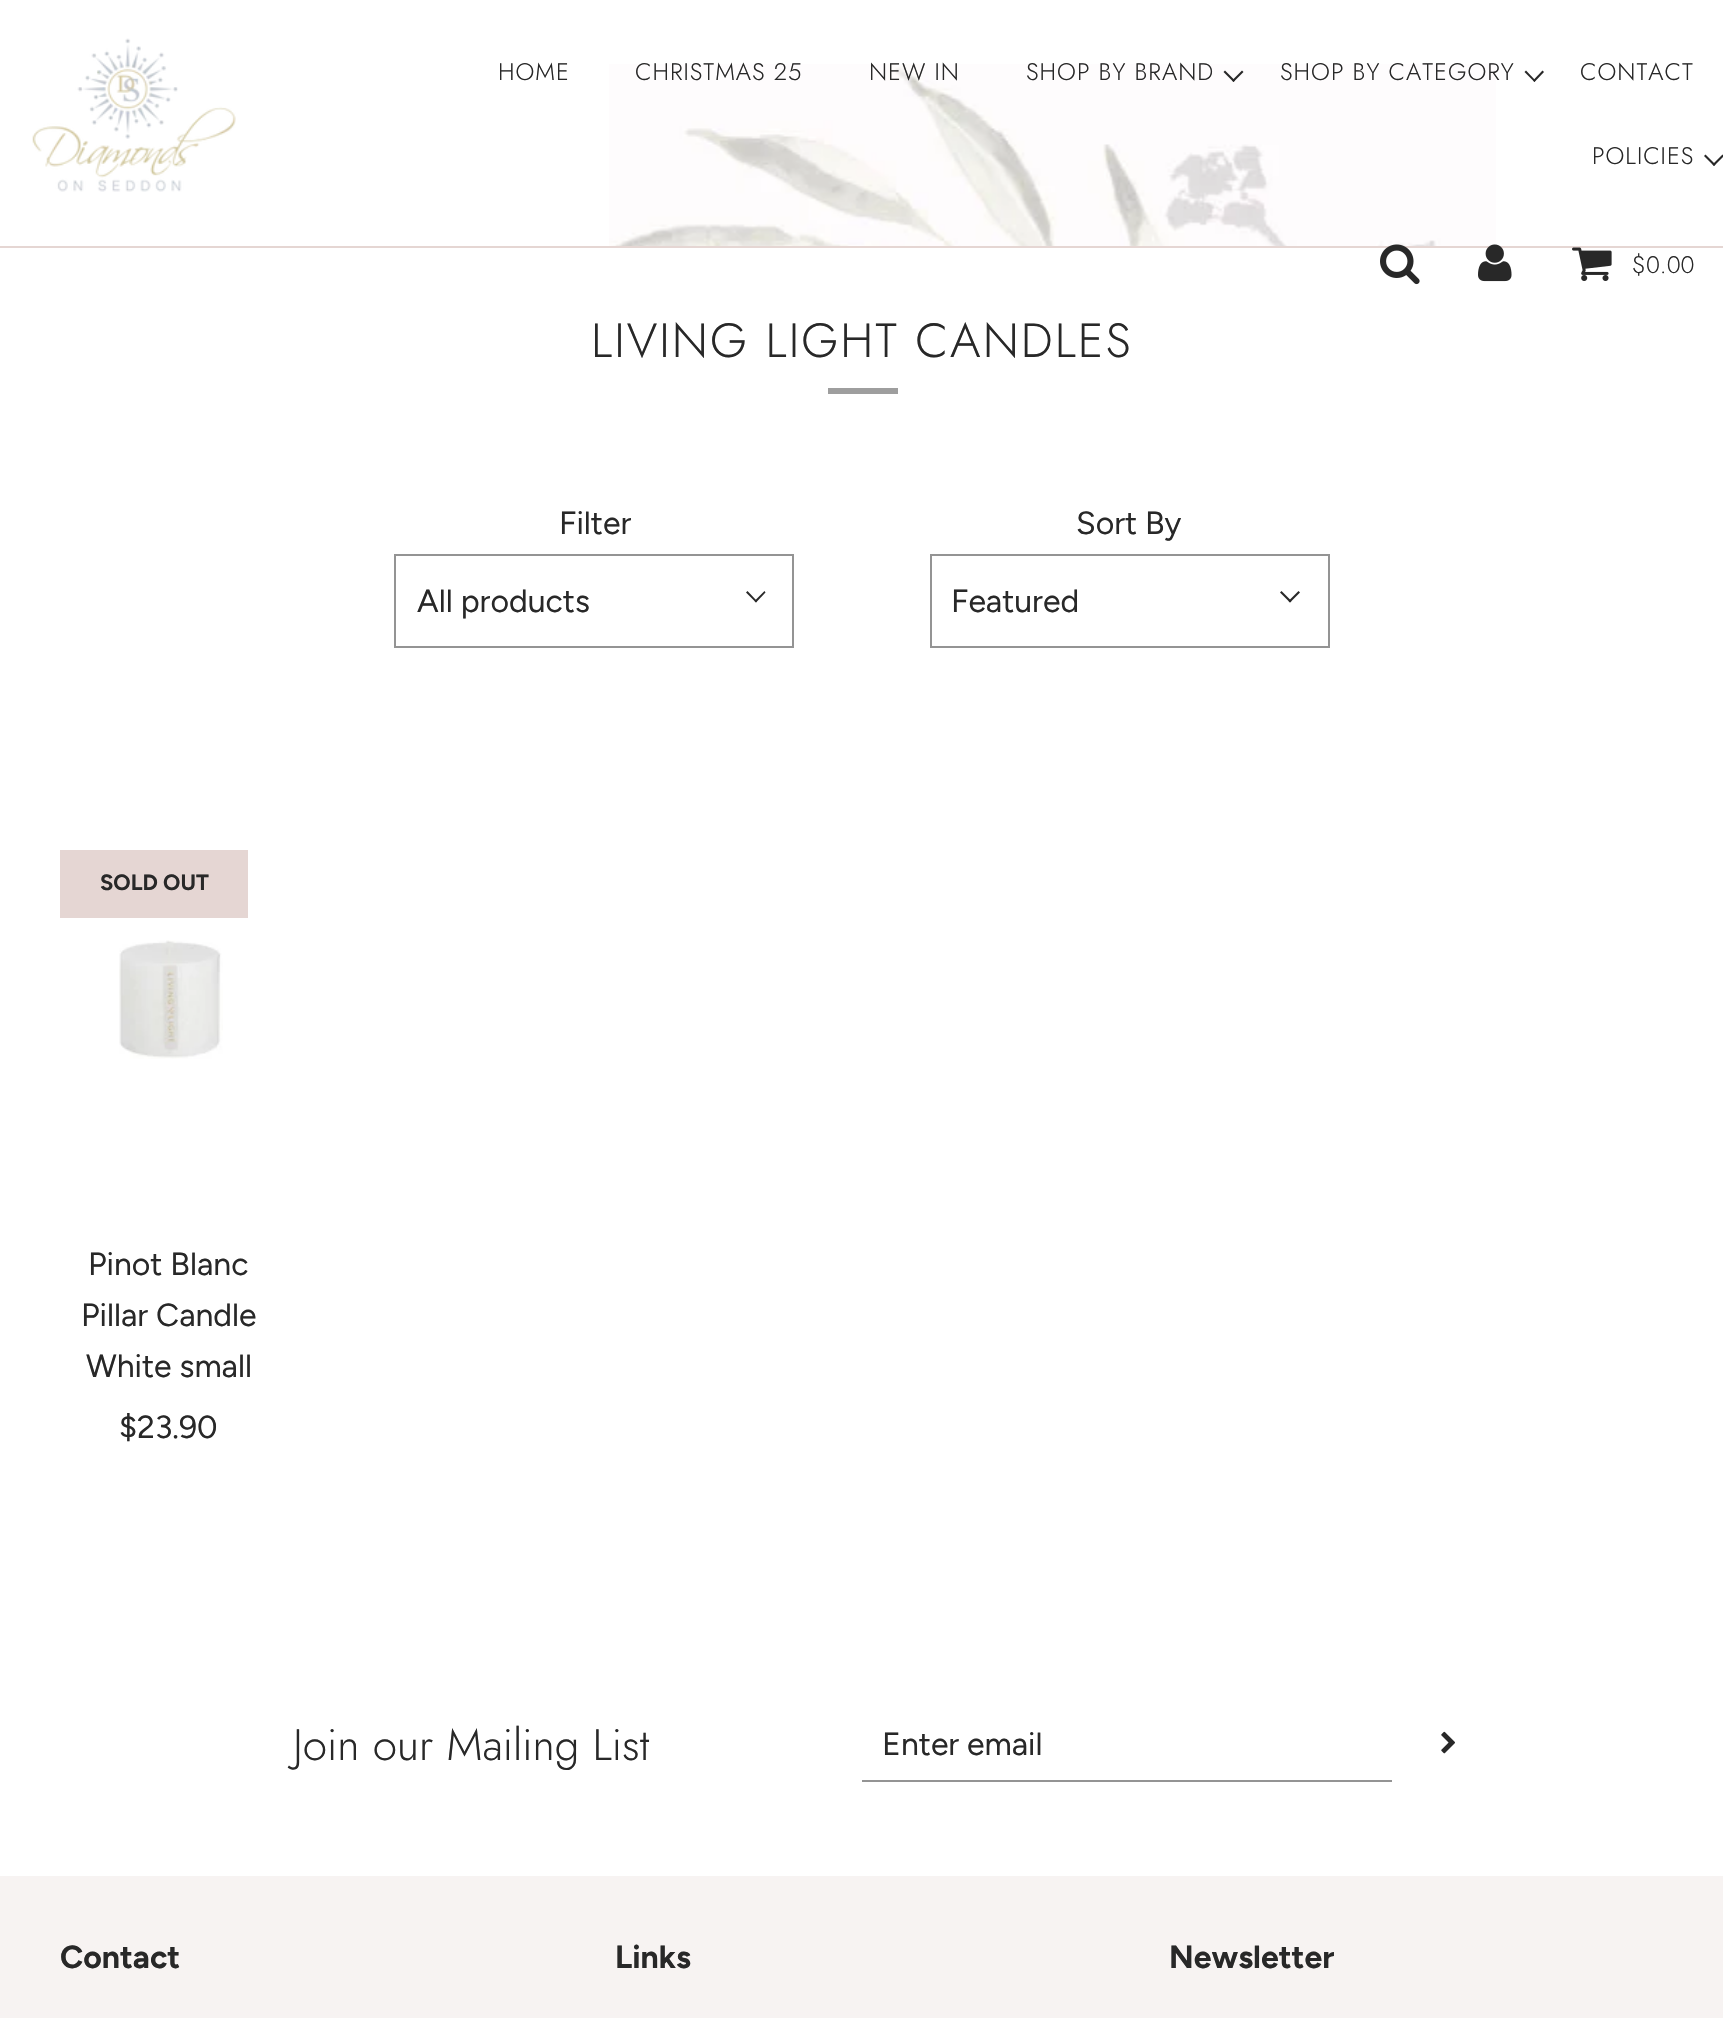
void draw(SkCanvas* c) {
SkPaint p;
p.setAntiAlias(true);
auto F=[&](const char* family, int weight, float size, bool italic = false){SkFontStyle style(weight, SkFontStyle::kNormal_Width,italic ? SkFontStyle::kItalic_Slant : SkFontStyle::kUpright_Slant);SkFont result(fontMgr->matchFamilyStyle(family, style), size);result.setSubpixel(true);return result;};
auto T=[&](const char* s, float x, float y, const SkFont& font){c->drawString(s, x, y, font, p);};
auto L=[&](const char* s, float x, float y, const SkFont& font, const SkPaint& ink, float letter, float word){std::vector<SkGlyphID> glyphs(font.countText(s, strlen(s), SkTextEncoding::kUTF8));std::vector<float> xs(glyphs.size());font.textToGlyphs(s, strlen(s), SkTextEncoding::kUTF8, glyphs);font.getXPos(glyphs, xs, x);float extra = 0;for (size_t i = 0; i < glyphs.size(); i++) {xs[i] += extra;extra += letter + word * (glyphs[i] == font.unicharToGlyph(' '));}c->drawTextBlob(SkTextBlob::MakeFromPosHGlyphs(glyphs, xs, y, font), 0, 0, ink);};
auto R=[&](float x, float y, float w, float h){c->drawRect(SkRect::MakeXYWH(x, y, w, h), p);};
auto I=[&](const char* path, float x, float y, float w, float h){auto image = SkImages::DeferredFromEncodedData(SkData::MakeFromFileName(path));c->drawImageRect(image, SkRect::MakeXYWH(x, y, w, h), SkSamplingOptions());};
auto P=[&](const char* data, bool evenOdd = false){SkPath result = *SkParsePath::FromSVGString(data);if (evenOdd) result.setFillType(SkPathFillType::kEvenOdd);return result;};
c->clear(0xffffffff);
I("1.png",609,64,887,182);
p.setColor(0xffe5d6d3);
R(0,246,1723,2);
I("2.png",32,38,204,154);
auto f1 = F("Jost",300,24);
p.setColor(0xff282828);
L("HOME",498,80,f1,p,1,0);
L("CHRISTMAS 25",635,80,f1,p,1,0);
L("NEW IN",869,80,f1,p,1,0);
L("SHOP BY BRAND",1026,80,f1,p,1,0);
c->drawPath(P("M1242 70.5l1.5 1.5l-10 10l-1.5-1.5z"),p);
c->drawPath(P("M1225 70.5l10 10l-1.5 1.5l-10-10z"),p);
L("SHOP BY CATEGORY",1280,80,f1,p,1,0);
c->drawPath(P("M1542.5 70.5l1.5 1.5l-9.5 10l-1.5-1.5z"),p);
c->drawPath(P("M1526 70.5l9.5 10l-1 1.5l-10-10z"),p);
L("CONTACT",1580,80,f1,p,1,0);
L("POLICIES",1592,164,f1,p,1,0);
c->drawPath(P("M1722.5 154.5l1.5 1.5l-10 10l-1.5-1.5z"),p);
c->drawPath(P("M1705.5 154.5l10 10l-1.5 1.5l-10-10z"),p);
I("3.png",1380,244,40,41);
I("4.png",1478,244,34,38);
I("5.png",1572,247,40,34);
T("$0.00",1632,273,f1);
auto f2 = F("Jost",300,48);
L("LIVING LIGHT CANDLES",591,357,f2,p,2,0);
p.setColor(0xff9e9e9e);
R(828,388,70,6);
auto f3 = F("Figtree",400,32);
p.setColor(0xff282828);
T("Filter",559,534,f3);
p.setStroke(true);
p.setStrokeWidth(2);
p.setColor(0xff949494);
c->drawRect(SkRect::MakeXYWH(395,555,398,92),p);
p.setStroke(false);
p.setColor(0xff282828);
T("All products",417,612,f3);
c->drawPath(P("M764.5 591l1 1.5l-9.5 10l-1.5-1.5z"),p);
c->drawPath(P("M747.5 591l9.5 10l-1 1.5l-10-10z"),p);
T("Sort By",1076,534,f3);
p.setStroke(true);
p.setColor(0xff949494);
c->drawRect(SkRect::MakeXYWH(931,555,398,92),p);
p.setStroke(false);
p.setColor(0xff282828);
T("Featured",951,612,f3);
c->drawPath(P("M1298.5 591l1.5 1.5l-10 10l-1.5-1.5z"),p);
c->drawPath(P("M1281.5 591l10 10l-1.5 1.5l-10-10z"),p);
p.setColor(0xffe5d6d3);
R(60,850,188,68);
auto f4 = F("Figtree",700,22);
p.setColor(0xff282828);
T("SOLD OUT",100,890,f4);
I("6.png",119,940,104,119);
T("Pinot Blanc",88,1275,f3);
T("Pillar Candle",81,1326,f3);
T("White small",86,1377,f3);
T("$23.90",119,1438,f3);
auto f5 = F("Jost",300,44);
T("Join our Mailing List",293,1760,f5);
p.setColor(0xff949494);
R(862,1780,530,2);
p.setColor(0xff282828);
T("Enter email",882,1755,f3);
I("7.png",1441,1731,14,23);
p.setColor(0xfff7f3f2);
R(0,1876,1723,142);
auto f6 = F("Figtree",700,32);
p.setColor(0xff282828);
T("Contact",60,1968,f6);
T("Links",615,1968,f6);
T("Newsletter",1169,1968,f6);
}
